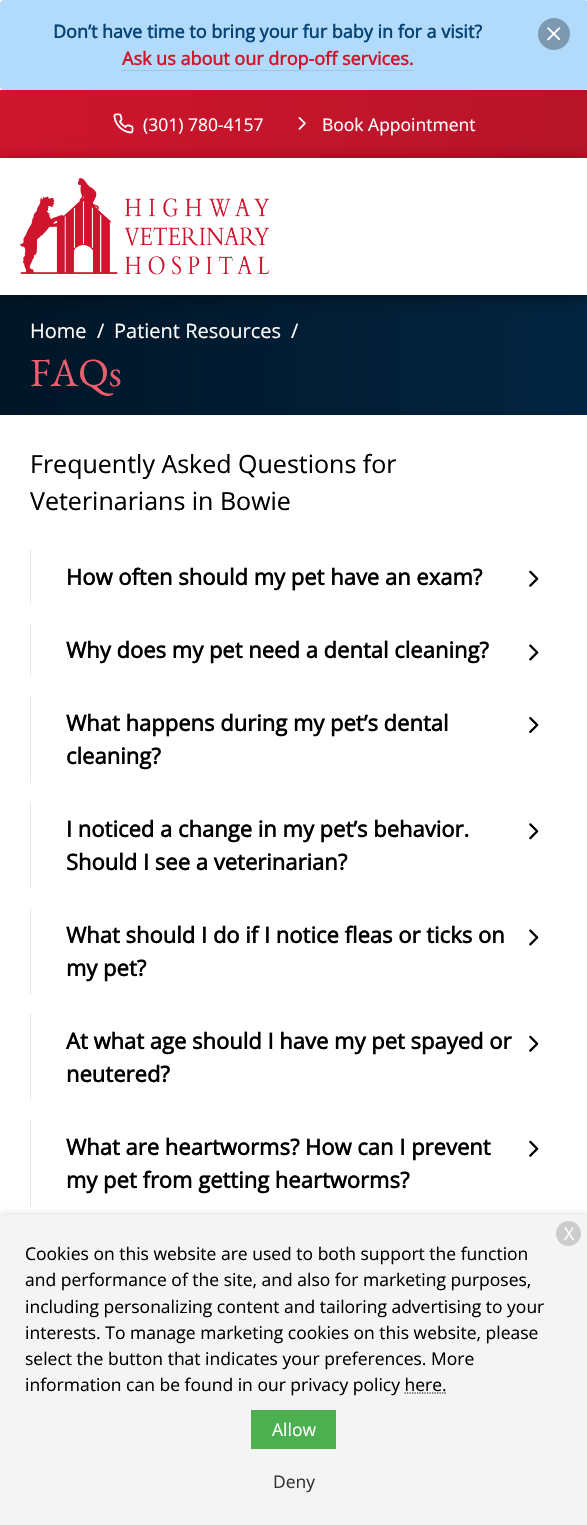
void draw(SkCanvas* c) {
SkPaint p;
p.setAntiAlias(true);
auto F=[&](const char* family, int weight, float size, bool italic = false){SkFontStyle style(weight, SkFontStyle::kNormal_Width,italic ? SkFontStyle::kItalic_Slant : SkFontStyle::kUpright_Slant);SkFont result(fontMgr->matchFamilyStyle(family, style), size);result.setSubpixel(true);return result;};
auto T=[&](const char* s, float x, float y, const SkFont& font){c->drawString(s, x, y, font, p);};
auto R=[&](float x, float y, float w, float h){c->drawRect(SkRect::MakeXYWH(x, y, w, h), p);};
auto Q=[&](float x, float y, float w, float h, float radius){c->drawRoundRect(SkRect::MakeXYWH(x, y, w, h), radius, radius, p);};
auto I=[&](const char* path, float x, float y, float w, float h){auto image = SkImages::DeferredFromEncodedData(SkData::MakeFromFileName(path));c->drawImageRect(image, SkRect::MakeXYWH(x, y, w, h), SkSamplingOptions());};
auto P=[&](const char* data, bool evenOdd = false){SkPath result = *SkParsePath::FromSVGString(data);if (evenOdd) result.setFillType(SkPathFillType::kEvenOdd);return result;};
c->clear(0xffffffff);
p.setColor(0xffb2dbfb);
Q(0,0,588,90,4);
auto f1 = F("Open Sans",700,18);
p.setColor(0xff064475);
T("Don’t have time to bring your fur baby in for a visit?",53,38,f1);
p.setColor(0xffd0162b);
T("Ask us about our drop-off services.",122,65,f1);
p.setColor(0xffa0c5e2);
R(121,70,293,1);
p.setColor(0xff7d99b0);
c->drawCircle(554,34,16,p);
I("1.png",547,27,14,14);
{
const SkColor colors[] = {0xffce162d,0xffb71428};
const float stops[] = {0,1};
const SkPoint ends[] = {{0,124}, {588,124}};
p.setShader(SkGradientShader::MakeLinear(ends, colors, stops, 2, SkTileMode::kClamp));
p.setAlpha(255);
}
R(0,90,587,68);
I("2.png",113,113,21,21);
auto f2 = F("Open Sans",400,17.5);
p.setShader(nullptr);
p.setColor(0xffffffff);
T("(301) 780-4157",143,131,f2);
I("3.png",298,117,8,13);
T("Book Appointment",322,131,f2);
{
const SkColor colors[] = {0xff011627,0xff022440};
const float stops[] = {0,1};
const SkPoint ends[] = {{0,355}, {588,355}};
p.setShader(SkGradientShader::MakeLinear(ends, colors, stops, 2, SkTileMode::kClamp));
p.setAlpha(255);
}
R(0,295,587,120);
c->save();
c->clipPath(P("M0 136h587v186h-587zm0 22h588v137h-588z",true),true);
p.setShader(nullptr);
p.setColor(0x66000000);
p.setMaskFilter(SkMaskFilter::MakeBlur(kNormal_SkBlurStyle, 7.5));
c->drawRect(SkRect::MakeXYWH(0,160,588,138),p);
p.setMaskFilter(nullptr);
c->restore();
I("4.png",20,178,250,97);
{
const SkColor colors[] = {0xff011423,0xff02203a};
const float stops[] = {0,1};
const SkPoint ends[] = {{0,355}, {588,355}};
p.setShader(SkGradientShader::MakeLinear(ends, colors, stops, 2, SkTileMode::kClamp));
p.setAlpha(255);
}
R(114,345,167,1);
R(30,345,56,1);
auto f3 = F("Open Sans",400,20);
p.setShader(nullptr);
p.setColor(0xffffffff);
T("Home",30,338,f3);
T("/",97,338,f3);
T("Patient Resources",114,338,f3);
T("/",291,338,f3);
auto f4 = F("EB Garamond",400,40);
p.setColor(0xffee5d6e);
T("FAQs",30,386,f4);
auto f5 = F("Open Sans",400,25);
p.setColor(0xff000000);
T("Frequently Asked Questions for",30,473,f5);
T("Veterinarians in Bowie",30,510,f5);
p.setColor(0xffe6e6e6);
R(30,550,1,54);
auto f6 = F("Open Sans",700,22);
p.setColor(0xff000000);
T("How often should my pet have an exam?",66,585,f6);
I("5.png",529,570,10,17);
p.setColor(0xffe6e6e6);
R(30,624,1,52);
p.setColor(0xff000000);
T("Why does my pet need a dental cleaning?",66,658,f6);
I("6.png",529,644,10,17);
p.setColor(0xffe6e6e6);
R(30,696,1,87);
p.setColor(0xff000000);
T("What happens during my pet’s dental",66,731,f6);
T("cleaning?",66,764,f6);
I("7.png",529,717,10,16);
p.setColor(0xffe6e6e6);
R(30,803,1,86);
p.setColor(0xff000000);
T("I noticed a change in my pet’s behavior.",66,837,f6);
T("Should I see a veterinarian?",66,870,f6);
I("8.png",529,823,10,17);
p.setColor(0xffe6e6e6);
R(30,909,1,85);
p.setColor(0xff000000);
T("What should I do if I notice fleas or ticks on",66,943,f6);
T("my pet?",66,976,f6);
I("6.png",529,929,10,17);
p.setColor(0xffe6e6e6);
R(30,1014,1,86);
p.setColor(0xff000000);
T("At what age should I have my pet spayed or",66,1049,f6);
T("neutered?",66,1082,f6);
I("5.png",529,1035,10,17);
p.setColor(0xffe6e6e6);
R(30,1120,1,86);
p.setColor(0xff000000);
T("What are heartworms? How can I prevent",66,1155,f6);
T("my pet from getting heartworms?",66,1188,f6);
I("5.png",529,1140,10,17);
p.setColor(0x1a000000);
p.setMaskFilter(SkMaskFilter::MakeBlur(kNormal_SkBlurStyle, 3));
c->drawRect(SkRect::MakeXYWH(0,1213,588,310),p);
p.setMaskFilter(nullptr);
p.setColor(0xfff4f4f4);
R(0,1215,587,310);
p.setColor(0xffcccccc);
c->drawCircle(568.5,1233.5,12.5,p);
p.setColor(0xffffffff);
T("X",564,1240,f2);
p.setColor(0xff000000);
T("Cookies on this website are used to both support the function",25,1260,f2);
T("and performance of the site, and also for marketing purposes,",25,1286,f2);
T("including personalizing content and tailoring advertising to your",25,1313,f2);
T("interests. To manage marketing cookies on this website, please",25,1339,f2);
T("select the button that indicates your preferences. More",25,1365,f2);
T("information can be found in our privacy policy here.",25,1391,f2);
p.setStroke(true);
p.setStrokeWidth(1.2);
p.setPathEffect(SkDashPathEffect::Make({{1.25f,1.25f}}, 0));
c->drawPath(P("M404.5 1393h42"),p);
p.setPathEffect(nullptr);
p.setStroke(false);
p.setColor(0xff4caf50);
R(251,1410,85,39);
p.setColor(0xffffffff);
T("Allow",272,1436,f2);
p.setColor(0xff333333);
T("Deny",273,1488,f2);
}
